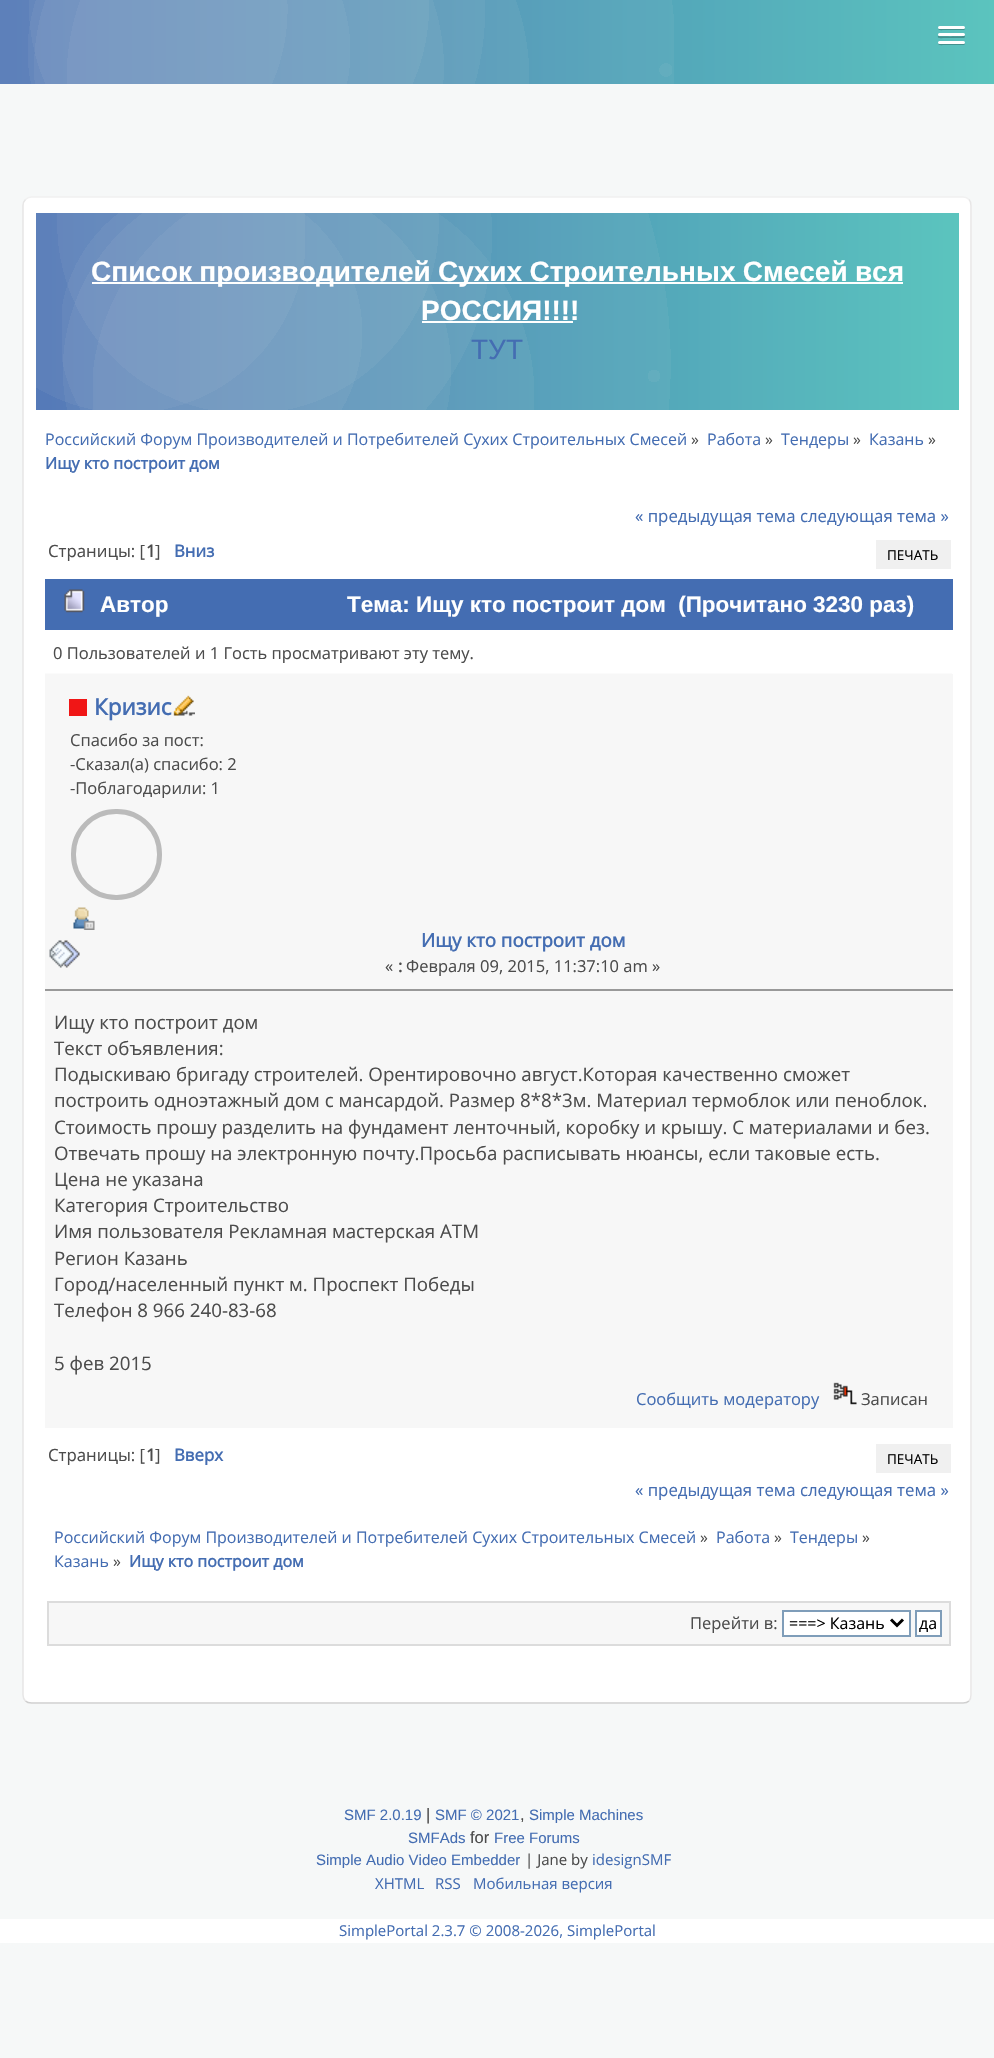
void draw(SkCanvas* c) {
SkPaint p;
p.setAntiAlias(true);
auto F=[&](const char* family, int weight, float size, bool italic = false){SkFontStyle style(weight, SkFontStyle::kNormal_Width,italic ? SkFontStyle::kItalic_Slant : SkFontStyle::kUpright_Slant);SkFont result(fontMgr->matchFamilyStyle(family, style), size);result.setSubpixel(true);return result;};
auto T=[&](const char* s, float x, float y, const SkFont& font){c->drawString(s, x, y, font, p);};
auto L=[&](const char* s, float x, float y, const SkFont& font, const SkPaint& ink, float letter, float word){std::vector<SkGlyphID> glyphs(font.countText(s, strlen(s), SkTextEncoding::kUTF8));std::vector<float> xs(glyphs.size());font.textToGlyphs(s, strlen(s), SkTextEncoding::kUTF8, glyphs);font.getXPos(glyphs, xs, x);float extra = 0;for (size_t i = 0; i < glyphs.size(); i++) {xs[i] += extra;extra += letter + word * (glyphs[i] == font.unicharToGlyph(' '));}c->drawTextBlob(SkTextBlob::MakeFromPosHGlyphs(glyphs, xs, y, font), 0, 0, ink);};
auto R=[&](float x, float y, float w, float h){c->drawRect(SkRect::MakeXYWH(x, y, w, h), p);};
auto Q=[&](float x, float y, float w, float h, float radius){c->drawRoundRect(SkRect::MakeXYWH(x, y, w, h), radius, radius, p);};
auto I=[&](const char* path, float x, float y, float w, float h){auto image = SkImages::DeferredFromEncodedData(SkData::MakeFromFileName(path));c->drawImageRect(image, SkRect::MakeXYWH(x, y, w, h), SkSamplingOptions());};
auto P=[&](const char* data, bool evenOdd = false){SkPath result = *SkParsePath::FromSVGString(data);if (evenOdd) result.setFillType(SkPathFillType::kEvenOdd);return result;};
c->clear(0xfff6f8f8);
p.setColor(0xffffffff);
R(0,1919,994,24);
{
const SkColor colors[] = {0xff446db2,0xff5bc4be};
const float stops[] = {0,1};
const SkPoint ends[] = {{0,42}, {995,42}};
p.setShader(SkGradientShader::MakeLinear(ends, colors, stops, 2, SkTileMode::kClamp));
p.setAlpha(255);
}
R(0,0,994,84);
{
const SkColor colors[] = {0x0df5f5f5,0x0df5f5f5,0x00f5f5f5,0x00000000,0x00000000};
const float stops[] = {0,.33,.33,.82,1};
p.setShader(SkGradientShader::MakeRadial({298,78}, 701, colors, stops, 5, SkTileMode::kClamp));
p.setAlpha(255);
}
R(65,0,464,84);
{
const SkColor colors[] = {0x0df5f5f5,0x0df5f5f5,0x00f5f5f5,0x00000000,0x00000000};
const float stops[] = {0,.63,.63,.72,1};
p.setShader(SkGradientShader::MakeRadial({129,65}, 868, colors, stops, 5, SkTileMode::kClamp));
p.setAlpha(255);
}
R(0,0,674,84);
{
const SkColor colors[] = {0x0df5f5f5,0x0df5f5f5,0x00f5f5f5,0x00000000,0x00000000};
const float stops[] = {0,.2,.2,.61,1};
p.setShader(SkGradientShader::MakeRadial({189,51}, 807, colors, stops, 5, SkTileMode::kClamp));
p.setAlpha(255);
}
R(27,0,323,84);
{
const SkColor colors[] = {0x0df5f5f5,0x0df5f5f5,0x00f5f5f5,0x00000000,0x00000000};
const float stops[] = {0,.21,.21,.81,1};
p.setShader(SkGradientShader::MakeRadial({99,9}, 898, colors, stops, 5, SkTileMode::kClamp));
p.setAlpha(255);
}
R(0,0,288,84);
{
const SkColor colors[] = {0x0df5f5f5,0x0df5f5f5,0x00f5f5f5,0x00000000,0x00000000};
const float stops[] = {0,.35,.35,.45,1};
p.setShader(SkGradientShader::MakeRadial({209,9}, 789, colors, stops, 5, SkTileMode::kClamp));
p.setAlpha(255);
}
R(0,0,485,84);
{
const SkColor colors[] = {0x0df5f5f5,0x0df5f5f5,0x00f5f5f5,0x00000000,0x00000000};
const float stops[] = {0,.26,.26,.82,1};
p.setShader(SkGradientShader::MakeRadial({229,4.2}, 770, colors, stops, 5, SkTileMode::kClamp));
p.setAlpha(255);
}
R(29,0,400,84);
{
const SkColor colors[] = {0x0df5f5f5,0x0df5f5f5,0x00f5f5f5,0x00000000,0x00000000};
const float stops[] = {0,.27,.27,.63,1};
p.setShader(SkGradientShader::MakeRadial({239,67}, 759, colors, stops, 5, SkTileMode::kClamp));
p.setAlpha(255);
}
R(33,0,411,84);
{
const SkColor colors[] = {0x0df5f5f5,0x0df5f5f5,0x00f5f5f5,0x00000000,0x00000000};
const float stops[] = {0,.01,.01,.05,1};
p.setShader(SkGradientShader::MakeRadial({666,70}, 670, colors, stops, 5, SkTileMode::kClamp));
p.setAlpha(255);
}
R(659,63,13,14);
p.setShader(nullptr);
p.setColor(0xff44908e);
c->drawPath(P("M938 28c-.5 3 5 2 5.5 2h20c1.5 0 2-2 1-2.5l-1 1c-1.5 .5-25 0-25.5-.5z"),p);
p.setColor(0xffffffff);
Q(938,26,27,3,1.5);
p.setColor(0xff44908e);
c->drawPath(P("M938 36c-1.5 3 5.5 2 5.5 2h20.5c1-.5 1.5-2 .5-3l-1.5 1c-2 .5-24 .5-25 0z"),p);
p.setColor(0xffffffff);
Q(938,33,27,3,1.5);
p.setColor(0xff44908e);
c->drawPath(P("M938 43c-.5 3 5 2 5.5 2h20c1.5 0 2-2 1-2.5l-1 1c-1.5 .5-25 0-25.5-.5z"),p);
p.setColor(0xffffffff);
Q(938,41,27,3,1.5);
Q(23,197,949,1507,9);
p.setStroke(true);
p.setStrokeWidth(1.5);
p.setColor(0xfff1f1f1);
c->drawPath(P("M25.5 199.5c1.5-1.5 4-2.5 6-2.5h931.5c2 0 4.5 1 6 2.5"),p);
p.setColor(0xffe7e6e6);
c->drawPath(P("M969 199.5c1.5 1.5 2 4 2 6v1489.5c0 2-.5 4.5-2 6"),p);
p.setColor(0xffcfcfcf);
c->drawPath(P("M969 1701c-1.5 1.5-4 2-6 2h-931.5c-2 0-4.5-.5-6-2"),p);
p.setColor(0xffe7e6e6);
c->drawPath(P("M25.5 1701c-1.5-1.5-2.5-4-2.5-6v-1489.5c0-2 1-4.5 2.5-6"),p);
p.setStroke(false);
{
const SkColor colors[] = {0xff446db2,0xff5bc4be};
const float stops[] = {0,1};
const SkPoint ends[] = {{36,311}, {959,311}};
p.setShader(SkGradientShader::MakeLinear(ends, colors, stops, 2, SkTileMode::kClamp));
p.setAlpha(255);
}
R(36,213,923,197);
{
const SkColor colors[] = {0x0df5f5f5,0x0df5f5f5,0x00f5f5f5,0x00000000,0x00000000};
const float stops[] = {0,.33,.33,.82,1};
p.setShader(SkGradientShader::MakeRadial({313,396}, 671, colors, stops, 5, SkTileMode::kClamp));
p.setAlpha(255);
}
R(93,213,441,197);
{
const SkColor colors[] = {0x0df5f5f5,0x0df5f5f5,0x00f5f5f5,0x00000000,0x00000000};
const float stops[] = {0,.63,.63,.72,1};
p.setShader(SkGradientShader::MakeRadial({156,364}, 817, colors, stops, 5, SkTileMode::kClamp));
p.setAlpha(255);
}
R(36,213,635,197);
{
const SkColor colors[] = {0x0df5f5f5,0x0df5f5f5,0x00f5f5f5,0x00000000,0x00000000};
const float stops[] = {0,.2,.2,.61,1};
p.setShader(SkGradientShader::MakeRadial({211,333}, 757, colors, stops, 5, SkTileMode::kClamp));
p.setAlpha(255);
}
R(62,213,300,197);
{
const SkColor colors[] = {0x0df5f5f5,0x0df5f5f5,0x00f5f5f5,0x00000000,0x00000000};
const float stops[] = {0,.21,.21,.81,1};
p.setShader(SkGradientShader::MakeRadial({128,235}, 848, colors, stops, 5, SkTileMode::kClamp));
p.setAlpha(255);
}
R(36,213,269,197);
{
const SkColor colors[] = {0x0df5f5f5,0x0df5f5f5,0x00f5f5f5,0x00000000,0x00000000};
const float stops[] = {0,.35,.35,.45,1};
p.setShader(SkGradientShader::MakeRadial({230,235}, 749, colors, stops, 5, SkTileMode::kClamp));
p.setAlpha(255);
}
R(36,213,456,197);
{
const SkColor colors[] = {0x0df5f5f5,0x0df5f5f5,0x00f5f5f5,0x00000000,0x00000000};
const float stops[] = {0,.26,.26,.82,1};
p.setShader(SkGradientShader::MakeRadial({248,223}, 734, colors, stops, 5, SkTileMode::kClamp));
p.setAlpha(255);
}
R(57,213,382,197);
{
const SkColor colors[] = {0x0df5f5f5,0x0df5f5f5,0x00f5f5f5,0x00000000,0x00000000};
const float stops[] = {0,.27,.27,.63,1};
p.setShader(SkGradientShader::MakeRadial({257,370}, 719, colors, stops, 5, SkTileMode::kClamp));
p.setAlpha(255);
}
R(63,213,388,197);
{
const SkColor colors[] = {0x0df5f5f5,0x0df5f5f5,0x00f5f5f5,0x00000000,0x00000000};
const float stops[] = {0,.01,.01,.05,1};
p.setShader(SkGradientShader::MakeRadial({654,376}, 639, colors, stops, 5, SkTileMode::kClamp));
p.setAlpha(255);
}
R(648,370,12,12);
p.setShader(nullptr);
p.setColor(0xffffffff);
R(92,282,811,2);
auto f1 = F("Liberation Sans",700,28);
L("Список производителей Сухих Строительных Смесей вся",91,281,f1,p,0,-.5);
T("РОССИЯ!!!!",421,320,f1);
R(422,321,151,2);
auto f2 = F("Liberation Sans",400,28);
p.setColor(0xff446db2);
T("ТУТ",471,359,f2);
auto f3 = F("Open Sans",400,16);
T("Российский Форум Производителей и Потребителей Сухих Строительных Смесей",45,445,f3);
p.setColor(0xff4c4c4c);
T("»",691,445,f3);
p.setColor(0xff446db2);
T("Работа",707,445,f3);
p.setColor(0xff4c4c4c);
T("»",765,445,f3);
p.setColor(0xff446db2);
T("Тендеры",781,445,f3);
p.setColor(0xff4c4c4c);
T("»",853,445,f3);
p.setColor(0xff446db2);
T("Казань",869,445,f3);
p.setColor(0xff4c4c4c);
T("»",928,445,f3);
auto f4 = F("Open Sans",700,16);
p.setColor(0xff446db2);
T("Ищу кто построит дом",45,469,f4);
auto f5 = F("Open Sans",400,16.8);
T("« предыдущая тема следующая тема »",635,522,f5);
p.setColor(0xff4c4c4c);
T("Страницы: [",48,557,f5);
auto f6 = F("Open Sans",700,16.8);
T("1",146,557,f6);
T("]",155,557,f5);
p.setColor(0xff446db2);
T("Вниз",174,557,f6);
p.setColor(0xfff0f0f0);
R(876,540,75,29);
auto f7 = F("Open Sans",400,13.5);
p.setColor(0xff000000);
T("ПЕЧАТЬ",887,560,f7);
p.setColor(0xff446db2);
R(45,579,908,51);
I("1.png",64,589,21,24);
auto f8 = F("Liberation Sans",700,22.45);
p.setColor(0xffffffff);
T("Автор",100,612,f8);
T("Тема: Ищу кто построит дом  (Прочитано 3230 раз)",347,612,f8);
auto f9 = F("Open Sans",400,16.5);
p.setColor(0xff4c4c4c);
T("0 Пользователей и 1 Гость просматривают эту тему.",53,659,f9);
p.setColor(0xfff7f7f7);
R(45,674,908,754);
p.setColor(0xfffbfbfb);
R(45,673,907,1);
p.setColor(0xfff01616);
R(69,699,18,17);
auto f10 = F("Open Sans",700,22.45);
p.setColor(0xff446db2);
T("Кризис",94,715,f10);
I("2.png",173,695,22,21);
p.setColor(0xff4c4c4c);
T("Спасибо за пост:",70,746,f9);
T("-Сказал(а) спасибо: 2",70,770,f9);
T("-Поблагодарили: 1",70,794,f9);
p.setStroke(true);
p.setStrokeWidth(5);
p.setColor(0xffbbbbbb);
c->drawRoundRect(SkRect::MakeXYWH(73.5,811.5,86,86),42.5,42.5,p);
I("3.png",73,907,22,23);
I("4.png",49,940,31,28);
auto f11 = F("Open Sans",700,18.7);
p.setStroke(false);
p.setColor(0xff446db2);
T("Ищу кто построит дом",421,947,f11);
p.setColor(0xff4c4c4c);
T("«",385,972,f9);
auto f12 = F("Open Sans",700,16.5);
T(":",398,972,f12);
T("Февраля 09, 2015, 11:37:10 am »",406,972,f9);
p.setColor(0xff999999);
R(45,989,908,2);
auto f13 = F("Open Sans",400,18.7);
p.setColor(0xff4c4c4c);
T("Ищу кто построит дом",54,1029,f13);
T("Текст объявления:",54,1055,f13);
T("Подыскиваю бригаду строителей. Орентировочно август.Которая качественно сможет",54,1081,f13);
T("построить одноэтажный дом с мансардой. Размер 8*8*3м. Материал термоблок или пеноблок.",54,1107,f13);
T("Стоимость прошу разделить на фундамент ленточный, коробку и крышу. С материалами и без.",54,1134,f13);
T("Отвечать прошу на электронную почту.Просьба расписывать нюансы, если таковые есть.",54,1160,f13);
T("Цена не указана",54,1186,f13);
T("Категория Строительство",54,1212,f13);
T("Имя пользователя Рекламная мастерская ATM",54,1238,f13);
T("Регион Казань",54,1265,f13);
T("Город/населенный пункт м. Проспект Победы",54,1291,f13);
T("Телефон 8 966 240-83-68",54,1317,f13);
T("5 фев 2015",54,1370,f13);
p.setColor(0xff446db2);
T("Сообщить модератору",636,1405,f9);
I("5.png",833,1382,24,23);
p.setColor(0xff4c4c4c);
T("Записан",861,1405,f9);
T("Страницы: [",48,1461,f5);
T("1",146,1461,f6);
T("]",155,1461,f5);
p.setColor(0xff446db2);
T("Вверх",174,1461,f6);
p.setColor(0xfff0f0f0);
R(876,1444,75,29);
p.setColor(0xff000000);
T("ПЕЧАТЬ",887,1464,f7);
p.setColor(0xff446db2);
T("« предыдущая тема следующая тема »",635,1496,f5);
T("Российский Форум Производителей и Потребителей Сухих Строительных Смесей",54,1543,f3);
p.setColor(0xff4c4c4c);
T("»",700,1543,f3);
p.setColor(0xff446db2);
T("Работа",716,1543,f3);
p.setColor(0xff4c4c4c);
T("»",774,1543,f3);
p.setColor(0xff446db2);
T("Тендеры",790,1543,f3);
p.setColor(0xff4c4c4c);
T("»",862,1543,f3);
p.setColor(0xff446db2);
T("Казань",54,1567,f3);
p.setColor(0xff4c4c4c);
T("»",113,1567,f3);
p.setColor(0xff446db2);
T("Ищу кто построит дом",129,1567,f4);
p.setColor(0xfff7f7f7);
c->drawRect(SkRect::MakeXYWH(48,1602,902,43),p);
p.setStroke(true);
p.setStrokeWidth(2);
p.setColor(0xffdcdcdc);
c->drawRect(SkRect::MakeXYWH(48,1602,902,43),p);
p.setStroke(false);
p.setColor(0xff4c4c4c);
T("Перейти в:",690,1629,f9);
p.setColor(0xffffffff);
c->drawRect(SkRect::MakeXYWH(783,1611,127,25),p);
p.setStroke(true);
p.setColor(0xff7f9db9);
c->drawRect(SkRect::MakeXYWH(783,1611,127,25),p);
p.setStrokeWidth(3);
p.setColor(0xff000000);
c->drawPath(P("M891 1619.5l6 6l6-6"),p);
p.setStroke(false);
T("===> Казань",789,1629,f3);
p.setColor(0xffffffff);
c->drawRect(SkRect::MakeXYWH(916,1611,25,25),p);
p.setStroke(true);
p.setStrokeWidth(2);
p.setColor(0xff7f9db9);
c->drawRect(SkRect::MakeXYWH(916,1611,25,25),p);
p.setStroke(false);
p.setColor(0xff000000);
T("да",919,1629,f3);
auto f14 = F("Liberation Sans",400,15);
p.setColor(0xff446db2);
T("SMF 2.0.19",344,1820,f14);
auto f15 = F("Liberation Sans",400,16.5);
p.setColor(0xff4c4c4c);
T("|",426,1820,f15);
p.setColor(0xff446db2);
T("SMF © 2021",435,1820,f14);
p.setColor(0xff4c4c4c);
T(",",520,1820,f15);
p.setColor(0xff446db2);
T("Simple Machines",529,1820,f14);
T("SMFAds",408,1843,f14);
p.setColor(0xff4c4c4c);
T("for",470,1843,f15);
p.setColor(0xff446db2);
T("Free Forums",494,1843,f14);
T("Simple Audio Video Embedder",316,1865,f14);
auto f16 = F("Open Sans",400,15);
p.setColor(0xff4c4c4c);
T("| Jane by",525,1865,f16);
p.setColor(0xff446db2);
T("idesignSMF",592,1865,f16);
T("XHTML",375,1889,f16);
T("RSS",435,1889,f16);
T("Мобильная версия",473,1889,f16);
T("SimplePortal 2.3.7 © 2008-2026, SimplePortal",339,1936,f16);
}
